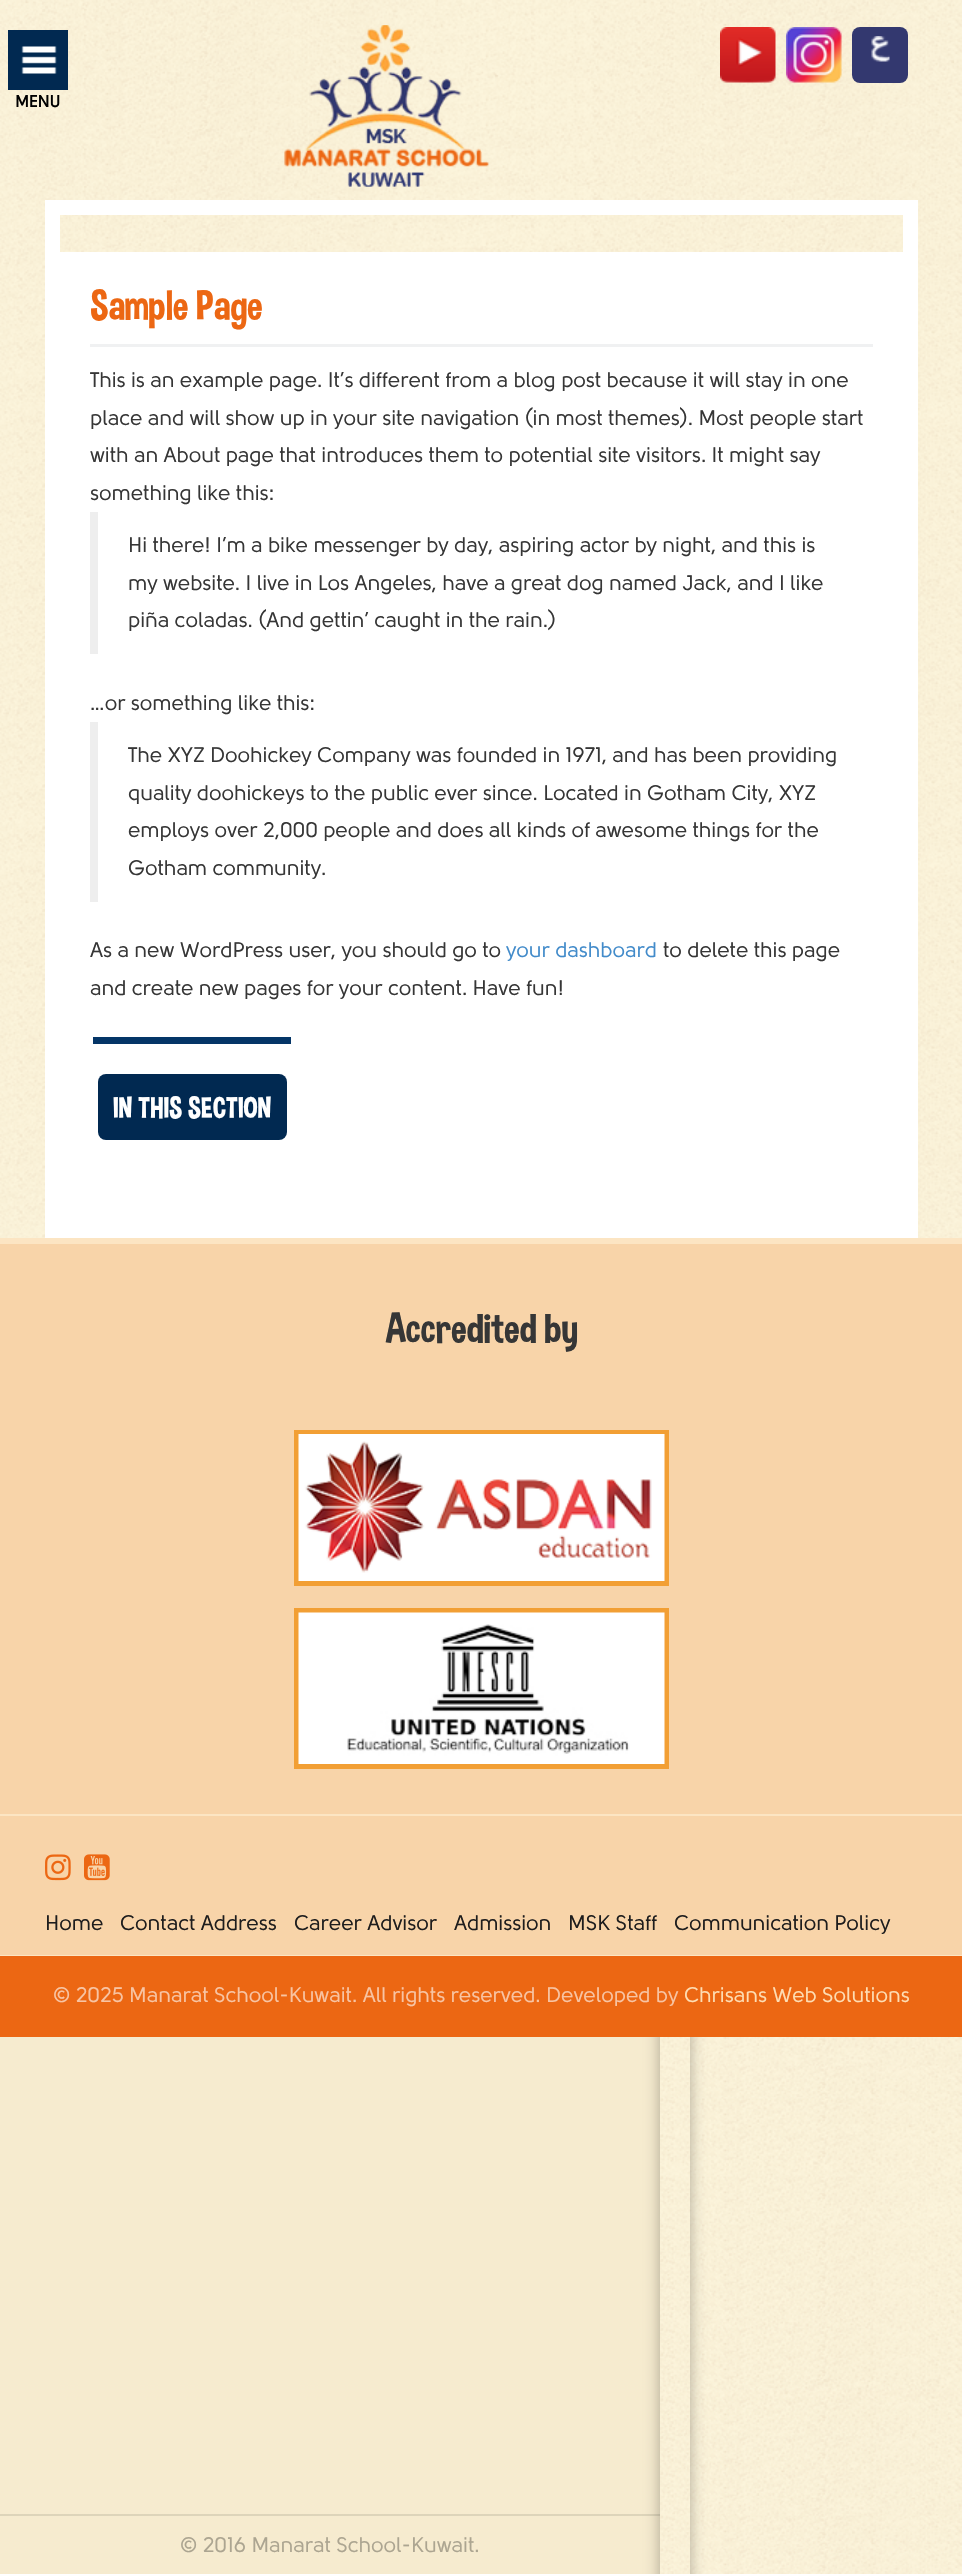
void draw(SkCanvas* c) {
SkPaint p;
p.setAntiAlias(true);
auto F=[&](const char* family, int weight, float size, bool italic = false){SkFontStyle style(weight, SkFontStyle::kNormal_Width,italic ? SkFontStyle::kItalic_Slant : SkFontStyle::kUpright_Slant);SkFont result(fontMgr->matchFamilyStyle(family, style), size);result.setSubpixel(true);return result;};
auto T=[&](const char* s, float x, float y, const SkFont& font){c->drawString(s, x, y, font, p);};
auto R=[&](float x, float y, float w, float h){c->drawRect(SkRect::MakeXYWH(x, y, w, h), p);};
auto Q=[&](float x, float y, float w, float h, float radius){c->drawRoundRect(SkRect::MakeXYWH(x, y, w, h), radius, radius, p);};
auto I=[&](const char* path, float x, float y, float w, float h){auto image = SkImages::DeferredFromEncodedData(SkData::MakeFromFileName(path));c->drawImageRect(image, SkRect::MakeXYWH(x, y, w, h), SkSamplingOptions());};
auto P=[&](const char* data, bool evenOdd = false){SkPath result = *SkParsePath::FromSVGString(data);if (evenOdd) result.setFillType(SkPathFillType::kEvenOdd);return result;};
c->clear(0xffffffff);
I("1.png",660,2037,302,537);
p.setColor(0xfff6ebcf);
R(0,2037,660,537);
p.setColor(0xffddd4ba);
R(0,2514,660,2);
c->save();
c->clipPath(P("M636 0h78v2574h-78zm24-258h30v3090h-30z",true),true);
p.setColor(0x4d000000);
p.setMaskFilter(SkMaskFilter::MakeBlur(kNormal_SkBlurStyle, 7.5));
c->drawRect(SkRect::MakeXYWH(660,-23,30,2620),p);
p.setMaskFilter(nullptr);
c->restore();
I("2.png",0,0,962,1238);
I("3.png",284,25,205,162);
I("4.png",720,27,56,56);
I("5.png",786,27,56,56);
p.setColor(0xff33386f);
Q(852,27,56,56,8);
I("6.png",871,36,19,26);
p.setColor(0xff012951);
R(8,30,60,60);
I("7.png",21,46,36,28);
auto f1 = F("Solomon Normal",700,16.5);
p.setColor(0xff000000);
T("MENU",15,107,f1);
p.setStroke(true);
p.setStrokeWidth(15);
p.setColor(0xffffffff);
c->drawRect(SkRect::MakeXYWH(52.5,207.5,858,52),p);
p.setStroke(false);
R(45,267,873,971);
p.setColor(0xfff0f1f2);
R(90,344,783,3);
auto f2 = F("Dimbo",400,42);
p.setColor(0xffec6713);
T("Sample Page",90,321,f2);
auto f3 = F("Solomon Normal",400,21);
p.setColor(0xff363636);
T("This is an example page. It’s different from a blog post because it will stay in one",90,387,f3);
T("place and will show up in your site navigation (in most themes). Most people start",90,425,f3);
T("with an About page that introduces them to potential site visitors. It might say",90,462,f3);
T("something like this:",90,500,f3);
p.setColor(0xffeeeeee);
R(90,512,8,142);
p.setColor(0xff363636);
T("Hi there! I’m a bike messenger by day, aspiring actor by night, and this is",128,552,f3);
T("my website. I live in Los Angeles, have a great dog named Jack, and I like",128,590,f3);
T("piña coladas. (And gettin’ caught in the rain.)",128,627,f3);
T("…or something like this:",90,710,f3);
p.setColor(0xffeeeeee);
R(90,722,8,180);
p.setColor(0xff363636);
T("The XYZ Doohickey Company was founded in 1971, and has been providing",128,762,f3);
T("quality doohickeys to the public ever since. Located in Gotham City, XYZ",128,800,f3);
T("employs over 2,000 people and does all kinds of awesome things for the",128,837,f3);
T("Gotham community.",128,875,f3);
T("As a new WordPress user, you should go to",90,957,f3);
p.setColor(0xff428bca);
T("your dashboard",506,957,f3);
p.setColor(0xff363636);
T("to delete this page",663,957,f3);
T("and create new pages for your content. Have fun!",90,995,f3);
p.setColor(0xff043567);
R(93,1037,198,7);
p.setColor(0xff012951);
Q(98,1074,189,66,8);
auto f4 = F("Dimbo",400,30);
p.setColor(0xffffffff);
T("IN THIS SECTION",113,1119,f4);
p.setColor(0xfff8d4a9);
R(0,1244,962,570);
p.setColor(0xfffce5c3);
R(0,1238,962,6);
p.setColor(0xff363636);
T("Accredited by",386,1344,f2);
p.setStroke(true);
p.setStrokeWidth(5);
p.setColor(0xfff29f34);
c->drawRect(SkRect::MakeXYWH(296.5,1432.5,370,151),p);
I("8.png",298,1434,367,147);
c->drawRect(SkRect::MakeXYWH(296.5,1610.5,370,156),p);
I("9.png",298,1612,367,152);
p.setStroke(false);
p.setColor(0xfff8d4a9);
R(0,1816,962,139);
p.setColor(0xfffce5c3);
R(0,1814,962,2);
R(0,1955,962,1);
I("10.png",45,1854,26,27);
I("11.png",84,1854,26,27);
p.setColor(0xff1e1d1d);
T("Home",45,1930,f3);
T("Contact Address",120,1930,f3);
T("Career Advisor",294,1930,f3);
T("Admission",454,1930,f3);
T("MSK Staff",568,1930,f3);
T("Communication Policy",674,1930,f3);
p.setColor(0xffec6713);
R(0,1956,962,81);
p.setColor(0xfff8c4a3);
T("© 2025 Manarat School-Kuwait. All rights reserved. Developed by",53,2002,f3);
p.setColor(0xfffeddb3);
T("Chrisans Web Solutions",684,2002,f3);
p.setColor(0xffaca591);
T("© 2016 Manarat School-Kuwait.",180,2552,f3);
}
